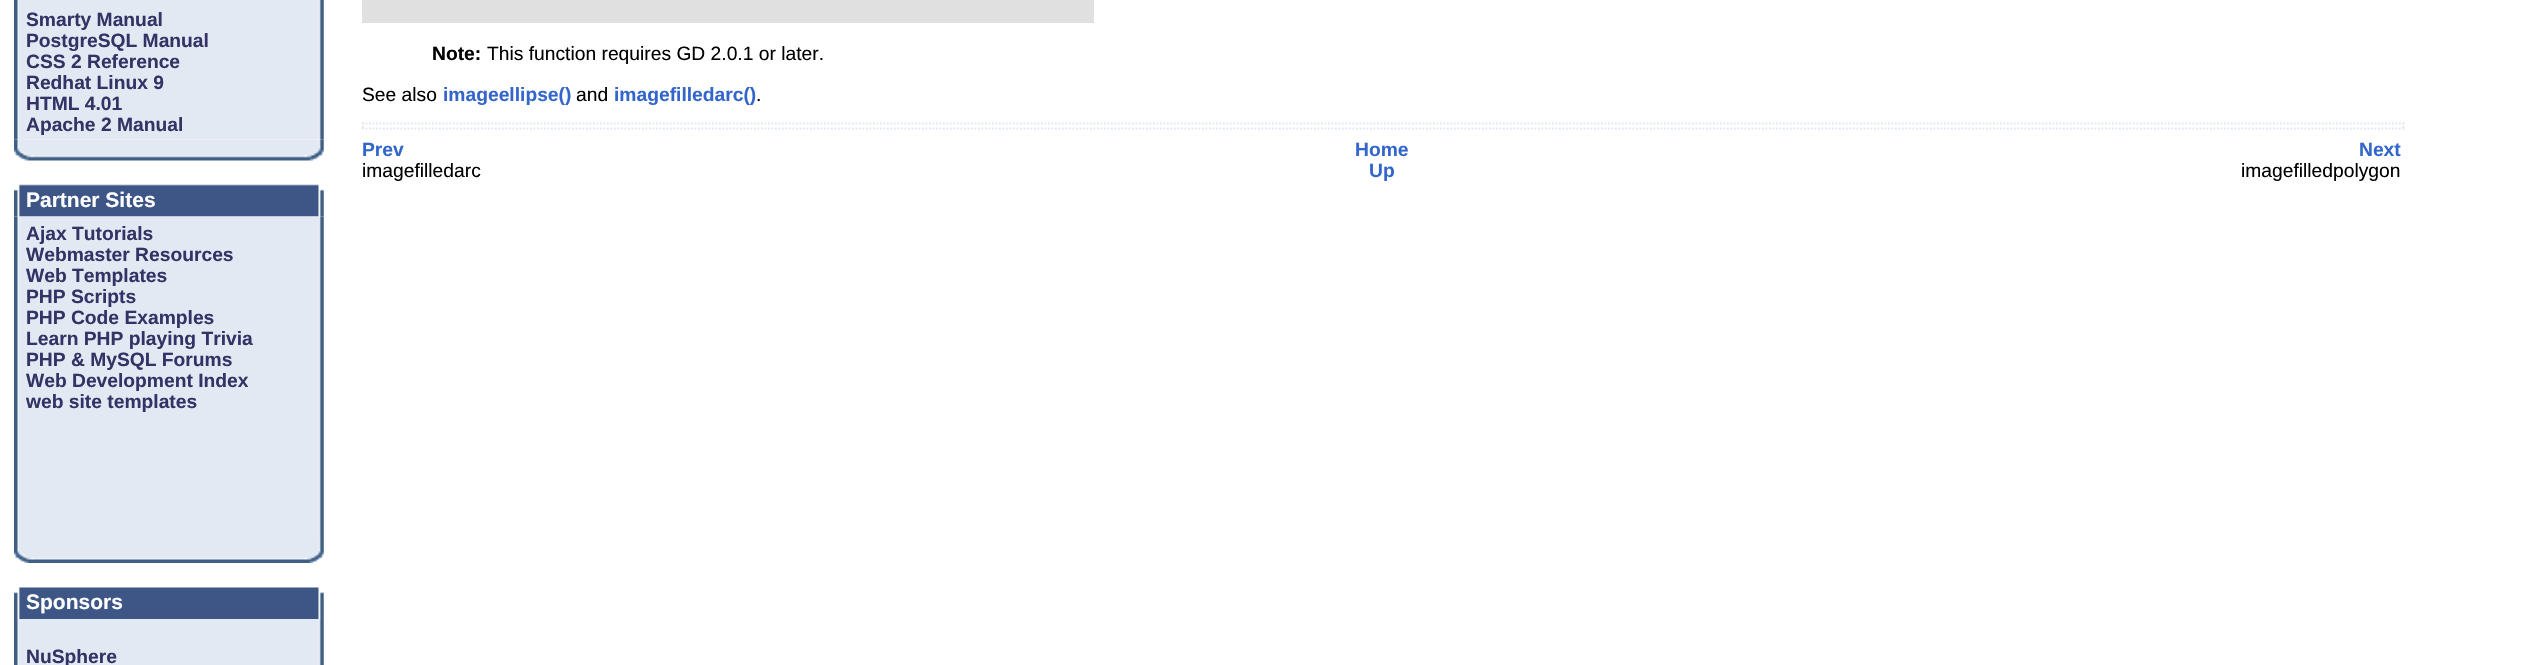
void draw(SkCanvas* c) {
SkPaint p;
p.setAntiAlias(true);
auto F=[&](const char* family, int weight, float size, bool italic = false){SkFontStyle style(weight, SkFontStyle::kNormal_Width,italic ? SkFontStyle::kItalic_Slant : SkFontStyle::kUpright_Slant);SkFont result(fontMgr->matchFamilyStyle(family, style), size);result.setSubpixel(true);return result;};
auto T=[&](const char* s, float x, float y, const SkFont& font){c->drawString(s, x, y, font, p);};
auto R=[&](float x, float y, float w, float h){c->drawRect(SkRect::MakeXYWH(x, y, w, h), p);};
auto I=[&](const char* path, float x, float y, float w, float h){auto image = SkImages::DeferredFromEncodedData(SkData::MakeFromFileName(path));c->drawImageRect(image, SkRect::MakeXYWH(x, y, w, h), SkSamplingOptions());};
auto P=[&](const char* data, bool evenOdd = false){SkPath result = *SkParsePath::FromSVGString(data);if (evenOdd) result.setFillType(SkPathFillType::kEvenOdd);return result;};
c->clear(0xffffffff);
I("1.png",14,0,310,140);
auto f1 = F("Liberation Sans",700,19.25);
p.setColor(0xff333366);
T("Smarty Manual",26,26,f1);
T("PostgreSQL Manual",26,47,f1);
T("CSS 2 Reference",26,68,f1);
T("Redhat Linux 9",26,89,f1);
T("HTML 4.01",26,110,f1);
T("Apache 2 Manual",26,131,f1);
I("2.png",14,139,310,22);
I("3.png",14,184,310,33);
auto f2 = F("Liberation Sans",700,21);
p.setColor(0xffffffff);
T("Partner Sites",26,207,f2);
I("4.png",14,216,310,326);
p.setColor(0xff333366);
T("Ajax Tutorials",26,240,f1);
T("Webmaster Resources",26,261,f1);
T("Web Templates",26,282,f1);
T("PHP Scripts",26,303,f1);
T("PHP Code Examples",26,324,f1);
T("Learn PHP playing Trivia",26,345,f1);
T("PHP & MySQL Forums",26,366,f1);
T("Web Development Index",26,387,f1);
T("web site templates",26,408,f1);
I("5.png",14,542,310,21);
I("6.png",14,587,310,32);
p.setColor(0xffffffff);
T("Sponsors",26,609,f2);
I("7.png",14,619,310,46);
p.setColor(0xff333366);
T("NuSphere",26,663,f1);
p.setColor(0xffe0e0e0);
R(362,0,732,23);
p.setColor(0xff000000);
T("Note:",432,60,f1);
auto f3 = F("Liberation Sans",400,19.25);
T("This function requires GD 2.0.1 or later.",487,60,f3);
T("See also",362,101,f3);
p.setColor(0xff3366cc);
T("imageellipse()",443,101,f1);
p.setColor(0xff000000);
T("and",576,101,f3);
p.setColor(0xff3366cc);
T("imagefilledarc()",614,101,f1);
p.setColor(0xff000000);
T(".",756,101,f3);
p.setStroke(true);
p.setStrokeWidth(1.8);
p.setColor(0xffe0e7f1);
p.setPathEffect(SkDashPathEffect::Make({{1.75f,1.75f}}, 0));
c->drawPath(P("M362 123.5h2042.5"),p);
p.setPathEffect(nullptr);
c->drawPath(P("M2403.5 122.5v1.5m0 2v2"),p);
p.setPathEffect(SkDashPathEffect::Make({{1.75f,1.75f}}, 0));
c->drawPath(P("M362 128.5h2042.5"),p);
p.setPathEffect(nullptr);
c->drawPath(P("M363 122.5v1.5m0 2v2"),p);
p.setStroke(false);
p.setColor(0xff3366cc);
T("Prev",362,156,f1);
T("Home",1355,156,f1);
T("Next",2359,156,f1);
p.setColor(0xff000000);
T("imagefilledarc",362,177,f3);
p.setColor(0xff3366cc);
T("Up",1369,177,f1);
p.setColor(0xff000000);
T("imagefilledpolygon",2241,177,f3);
}
